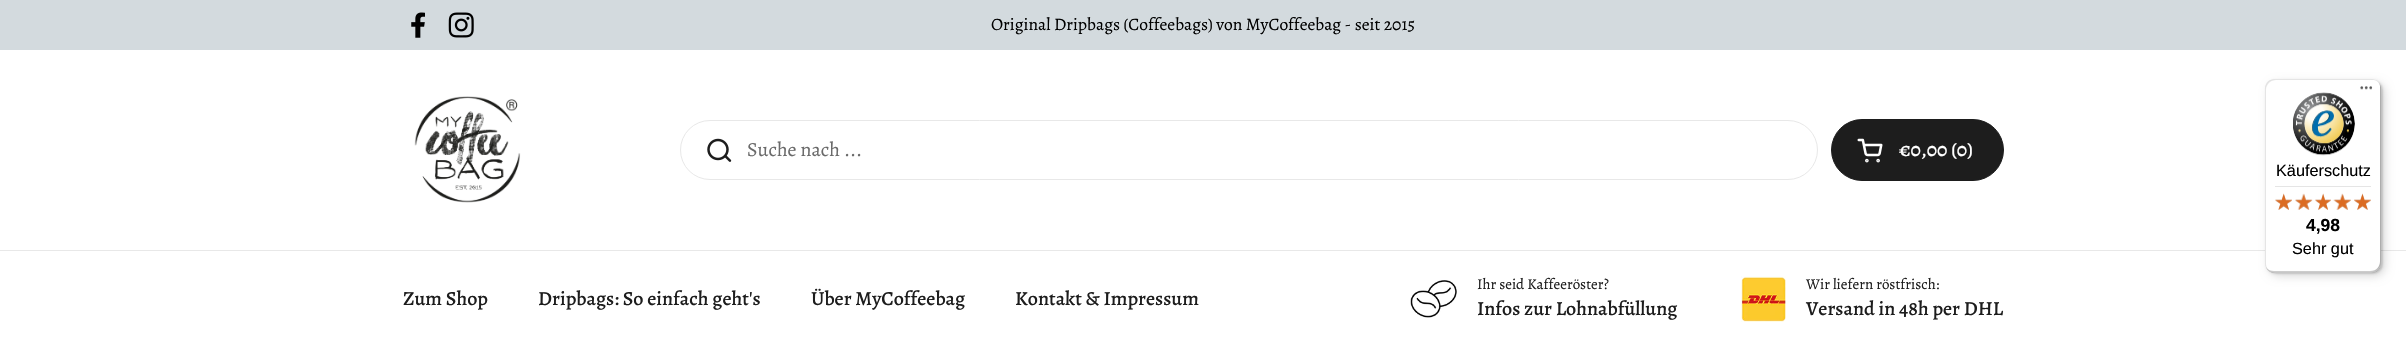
void draw(SkCanvas* c) {
SkPaint p;
p.setAntiAlias(true);
auto F=[&](const char* family, int weight, float size, bool italic = false){SkFontStyle style(weight, SkFontStyle::kNormal_Width,italic ? SkFontStyle::kItalic_Slant : SkFontStyle::kUpright_Slant);SkFont result(fontMgr->matchFamilyStyle(family, style), size);result.setSubpixel(true);return result;};
auto T=[&](const char* s, float x, float y, const SkFont& font){c->drawString(s, x, y, font, p);};
auto R=[&](float x, float y, float w, float h){c->drawRect(SkRect::MakeXYWH(x, y, w, h), p);};
auto Q=[&](float x, float y, float w, float h, float radius){c->drawRoundRect(SkRect::MakeXYWH(x, y, w, h), radius, radius, p);};
auto I=[&](const char* path, float x, float y, float w, float h){auto image = SkImages::DeferredFromEncodedData(SkData::MakeFromFileName(path));c->drawImageRect(image, SkRect::MakeXYWH(x, y, w, h), SkSamplingOptions());};
auto P=[&](const char* data, bool evenOdd = false){SkPath result = *SkParsePath::FromSVGString(data);if (evenOdd) result.setFillType(SkPathFillType::kEvenOdd);return result;};
c->clear(0xffffffff);
p.setColor(0xffd3dade);
R(0,0,2406,50);
I("1.png",411,12,14,26);
I("2.png",448,12,26,26);
auto f1 = F("Alegreya",400,17.5);
p.setColor(0xff000000);
T("Original Dripbags (Coffeebags) von MyCoffeebag - seit 2015",991,30,f1);
p.setColor(0xffe8e8e8);
R(0,250,2406,1);
I("3.png",414,96,107,107);
p.setStroke(true);
p.setStrokeWidth(1);
c->drawRoundRect(SkRect::MakeXYWH(680.5,120.5,1137,59),29.5,29.5,p);
I("4.png",707,138,25,24);
auto f2 = F("Alegreya",400,20);
p.setStroke(false);
p.setColor(0xff6a6a6a);
T("Suche nach ...",747,156,f2);
p.setColor(0xff1d1d1d);
c->drawRoundRect(SkRect::MakeXYWH(1831.5,119.5,172,61),30.5,30.5,p);
p.setStroke(true);
c->drawRoundRect(SkRect::MakeXYWH(1831.5,119.5,172,61),30.5,30.5,p);
I("5.png",1857,138,26,25);
auto f3 = F("Alegreya",500,20);
p.setStroke(false);
p.setColor(0xffffffff);
T("€0,00 (0)",1899,156,f3);
p.setColor(0xff1d1d1d);
T("Zum Shop",403,305,f3);
T("Dripbags: So einfach geht's",538,305,f3);
T("Über MyCoffeebag",811,305,f3);
T("Kontakt & Impressum",1015,305,f3);
I("6.png",1410,280,47,38);
auto f4 = F("Alegreya",400,15);
T("Ihr seid Kaffeeröster?",1477,289,f4);
T("Infos zur Lohnabfüllung",1477,315,f3);
I("7.png",1741,276,45,46);
T("Wir liefern röstfrisch:",1806,289,f4);
T("Versand in 48h per DHL",1806,315,f3);
p.setColor(0x26000000);
p.setMaskFilter(SkMaskFilter::MakeBlur(kNormal_SkBlurStyle, 5));
c->drawRoundRect(SkRect::MakeXYWH(2269,83,116,193),10,10,p);
p.setMaskFilter(nullptr);
p.setMaskFilter(SkMaskFilter::MakeBlur(kNormal_SkBlurStyle, 1));
c->drawRoundRect(SkRect::MakeXYWH(2266,80,117,194),10,10,p);
p.setMaskFilter(nullptr);
p.setColor(0xffffffff);
Q(2265,79,116,194,10);
p.setColor(0x1a000000);
c->drawPath(P("M2276 80h96c2 0 4 0 5 1c-1-1-4-2-6-2h-96c-6 0-10 4-10 10v174c0 4 2 7 5 9c-2-2-4-5-4-8v-174c0-6 5-10 10-10z"),p);
p.setColor(0x33000000);
c->drawPath(P("M2266 267c2 4 5 6 9 6h96c6 0 10-4 10-10v-174c0-2-1-5-2-6c1 1 1 3 1 5v173c0 6-4 10-10 10h-96c-3 0-6-1-8-4z"),p);
p.setColor(0x33323232);
c->drawPath(P("M2266 268c2 3 5 5 9 5h96c6 0 10-4 10-10v-174c0-2-1-5-2-6c1 1 1 3 1 5v174c0 5-4 10-10 10h-96c-3 0-6-2-8-4z"),p);
I("8.png",2360,86,13,4);
p.setColor(0x4dffffff);
c->drawPath(P("M2266 268c2 3 5 5 9 5h96c6 0 10-4 10-10v-1c0 5-5 10-10 10h-97c-3 0-6-2-8-4z"),p);
I("9.png",2293,92,62,64);
auto f5 = F("Liberation Sans",400,16.25);
p.setColor(0xff000000);
T("Käuferschutz",2276,176,f5);
p.setColor(0xffe5e5e5);
R(2275,186,96,1);
I("15.png",2275,194,17,16);
I("10.png",2275,193,17,17);
I("16.png",2295,194,17,16);
I("11.png",2295,193,18,17);
I("17.png",2315,194,16,16);
I("12.png",2315,193,16,17);
I("18.png",2333,194,18,16);
I("13.png",2333,193,18,17);
I("19.png",2354,194,17,16);
I("14.png",2354,193,17,17);
auto f6 = F("Liberation Sans",700,17.5);
p.setColor(0xff000000);
T("4,98",2306,231,f6);
T("Sehr gut",2292,254,f5);
}
